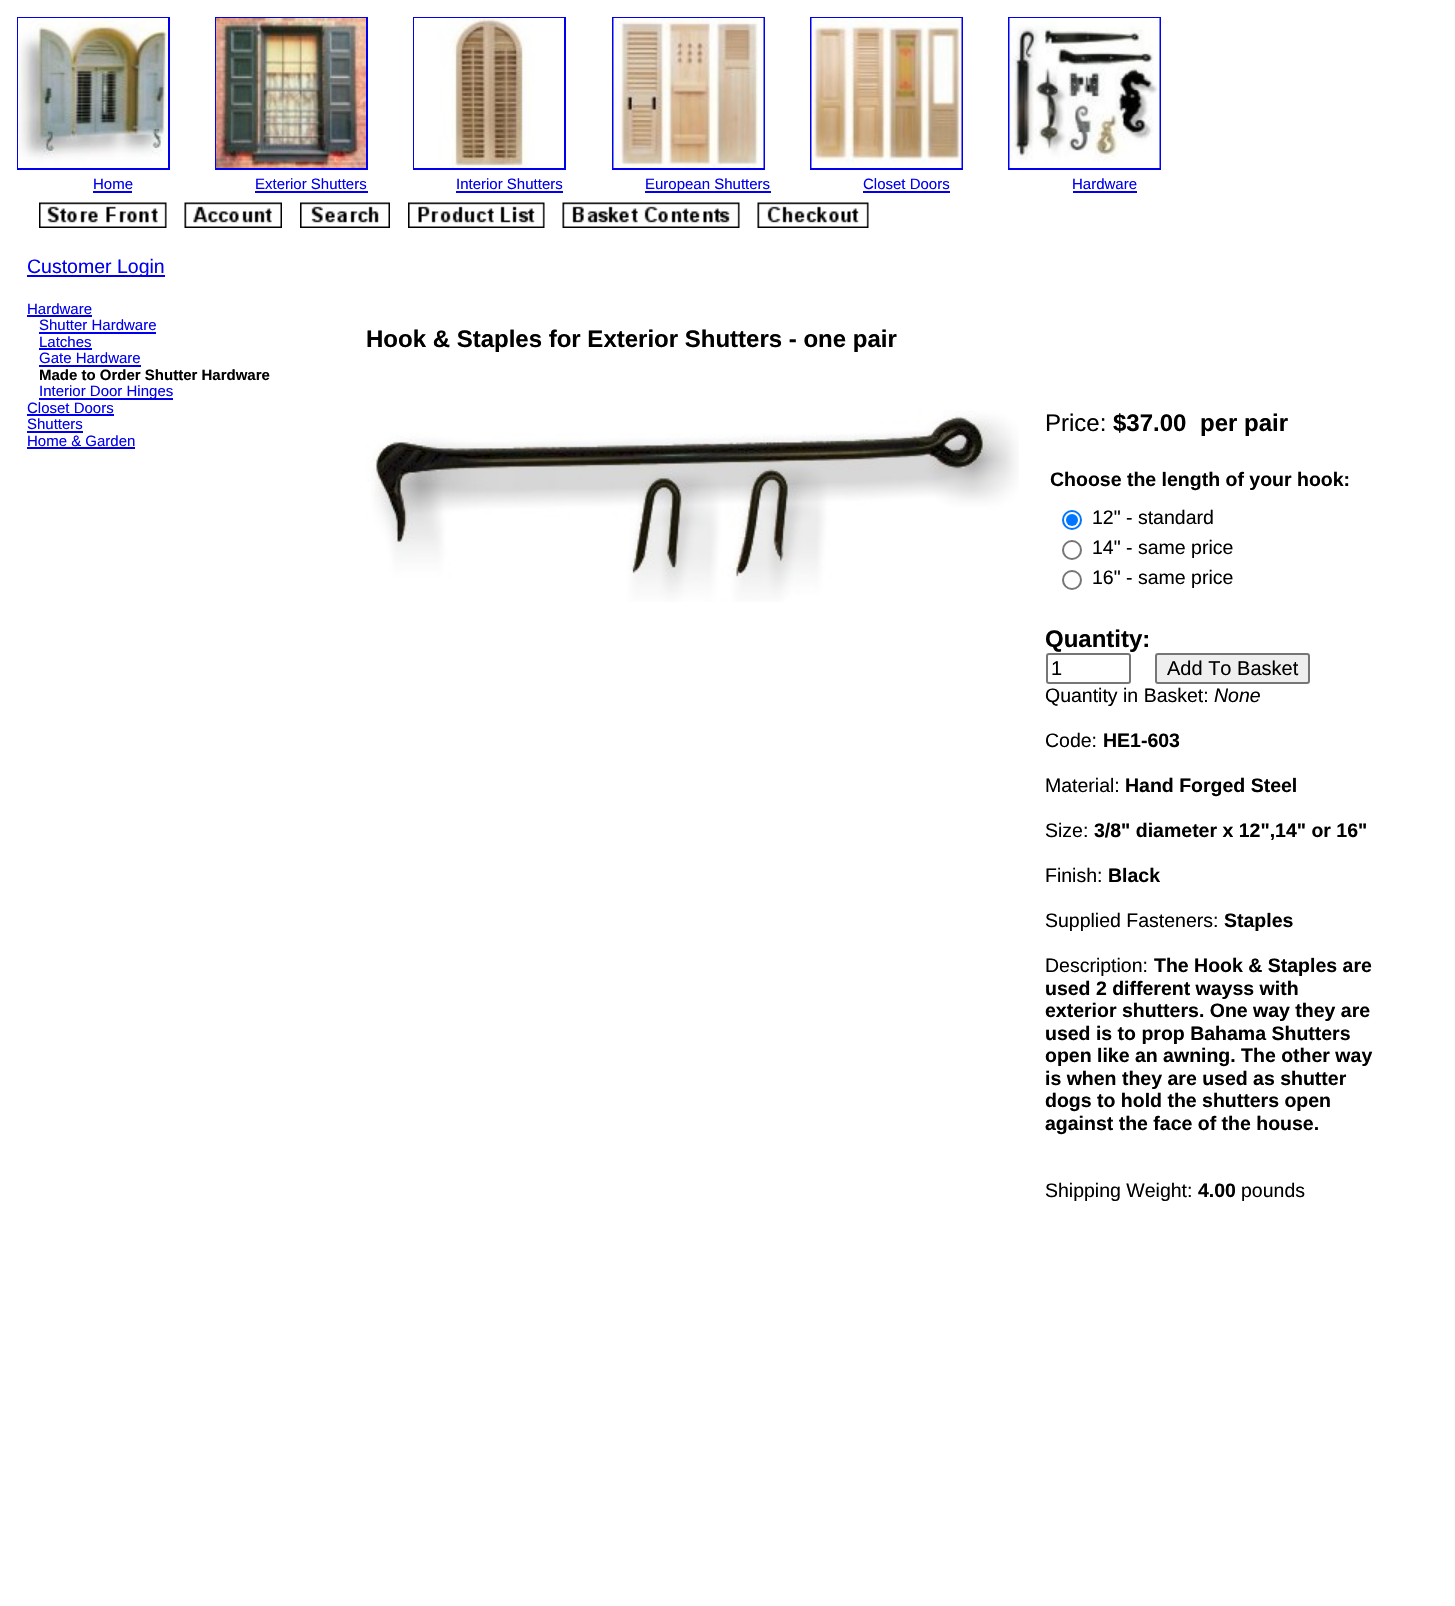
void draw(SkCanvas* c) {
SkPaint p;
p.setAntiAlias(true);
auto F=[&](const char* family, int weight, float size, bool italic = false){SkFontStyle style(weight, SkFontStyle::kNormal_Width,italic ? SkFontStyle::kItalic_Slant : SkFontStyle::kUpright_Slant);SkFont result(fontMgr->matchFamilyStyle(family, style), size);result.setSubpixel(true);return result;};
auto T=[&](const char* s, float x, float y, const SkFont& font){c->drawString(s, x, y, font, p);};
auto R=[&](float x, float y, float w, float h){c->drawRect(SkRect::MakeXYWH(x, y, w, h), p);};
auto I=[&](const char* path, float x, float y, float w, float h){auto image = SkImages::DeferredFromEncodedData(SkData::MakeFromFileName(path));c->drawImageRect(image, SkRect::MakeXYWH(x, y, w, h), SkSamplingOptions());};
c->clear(0xffffffff);
p.setStroke(true);
p.setStrokeWidth(2);
p.setColor(0xff0000ee);
c->drawRect(SkRect::MakeXYWH(18,18,151,151),p);
I("1.png",18,18,150,150);
c->drawRect(SkRect::MakeXYWH(216,18,151,151),p);
I("2.png",216,18,150,150);
c->drawRect(SkRect::MakeXYWH(414,18,151,151),p);
I("3.png",414,18,150,150);
c->drawRect(SkRect::MakeXYWH(613,18,151,151),p);
I("4.png",613,18,151,150);
c->drawRect(SkRect::MakeXYWH(811,18,151,151),p);
I("5.png",811,18,151,150);
c->drawRect(SkRect::MakeXYWH(1009,18,151,151),p);
I("6.png",1009,18,151,150);
auto f1 = F("Liberation Sans",400,15);
p.setStroke(false);
T("Home",93,189,f1);
R(93,191,39,2);
T("Exterior Shutters",255,189,f1);
R(255,191,113,2);
T("Interior Shutters",456,189,f1);
R(456,191,107,2);
R(645,191,126,2);
T("European Shutters",645,189,f1);
T("Closet Doors",863,189,f1);
R(863,191,87,2);
T("Hardware",1072,189,f1);
R(1073,191,64,2);
I("7.png",39,202,128,26);
I("8.png",184,202,98,26);
I("9.png",300,202,90,26);
I("10.png",408,202,137,26);
I("11.png",562,202,178,26);
I("12.png",757,202,112,26);
R(27,275,138,2);
auto f2 = F("Liberation Sans",400,19.5);
T("Customer Login",27,273,f2);
T("Hardware",27,314,f1);
R(27,315,65,2);
T("Shutter Hardware",39,330,f1);
R(39,332,117,2);
T("Latches",39,347,f1);
R(39,348,53,2);
T("Gate Hardware",39,363,f1);
R(39,365,102,2);
auto f3 = F("Liberation Sans",700,15);
p.setColor(0xff000000);
T("Made to Order Shutter Hardware",39,380,f3);
p.setColor(0xff0000ee);
R(39,398,134,2);
T("Interior Door Hinges",39,396,f1);
T("Closet Doors",27,413,f1);
R(27,414,87,2);
T("Shutters",27,429,f1);
R(27,431,56,2);
T("Home & Garden",27,446,f1);
R(27,447,108,2);
auto f4 = F("Liberation Sans",700,24);
p.setColor(0xff000000);
T("Hook & Staples for Exterior Shutters - one pair",366,347,f4);
I("13.png",366,410,653,192);
auto f5 = F("Liberation Sans",400,24);
T("Price:",1045,431,f5);
T("$37.00",1113,431,f4);
T("per pair",1200,431,f4);
auto f6 = F("Liberation Sans",700,19.5);
T("Choose the length of your hook:",1050,486,f6);
p.setStroke(true);
p.setColor(0xff0075ff);
c->drawCircle(1072,520,9,p);
p.setStroke(false);
c->drawCircle(1072,520,6,p);
p.setColor(0xff000000);
T("12\" - standard",1092,524,f2);
p.setStroke(true);
p.setColor(0xff767676);
c->drawCircle(1072,550,9,p);
p.setStroke(false);
p.setColor(0xff000000);
T("14\" - same price",1092,554,f2);
p.setStroke(true);
p.setColor(0xff767676);
c->drawCircle(1072,580,9,p);
p.setStroke(false);
p.setColor(0xff000000);
T("16\" - same price",1092,584,f2);
T("Quantity:",1045,647,f4);
p.setStroke(true);
p.setColor(0xff767676);
c->drawRoundRect(SkRect::MakeXYWH(1047,654,83,29),2,2,p);
auto f7 = F("Liberation Sans",400,20);
p.setStroke(false);
p.setColor(0xff000000);
T("1",1051,675,f7);
p.setColor(0xffefefef);
c->drawRoundRect(SkRect::MakeXYWH(1156,654,153,29),2,2,p);
p.setStroke(true);
p.setColor(0xff767676);
c->drawRoundRect(SkRect::MakeXYWH(1156,654,153,29),2,2,p);
p.setStroke(false);
p.setColor(0xff000000);
T("Add To Basket",1167,675,f7);
T("Quantity in Basket:",1045,702,f2);
auto f8 = F("Liberation Sans",400,19.5,true);
T("None",1214,702,f8);
T("Code:",1045,747,f2);
T("HE1-603",1103,747,f6);
T("Material:",1045,792,f2);
T("Hand Forged Steel",1125,792,f6);
T("Size:",1045,837,f2);
T("3/8\" diameter x 12\",14\" or 16\"",1094,837,f6);
T("Finish:",1045,882,f2);
T("Black",1108,882,f6);
T("Supplied Fasteners:",1045,927,f2);
T("Staples",1224,927,f6);
T("Description:",1045,972,f2);
T("The Hook & Staples are",1154,972,f6);
T("used 2 different wayss with",1045,995,f6);
T("exterior shutters. One way they are",1045,1017,f6);
T("used is to prop Bahama Shutters",1045,1040,f6);
T("open like an awning. The other way",1045,1062,f6);
T("is when they are used as shutter",1045,1085,f6);
T("dogs to hold the shutters open",1045,1107,f6);
T("against the face of the house.",1045,1130,f6);
T("Shipping Weight:",1045,1197,f2);
T("4.00",1198,1197,f6);
T("pounds",1241,1197,f2);
}
